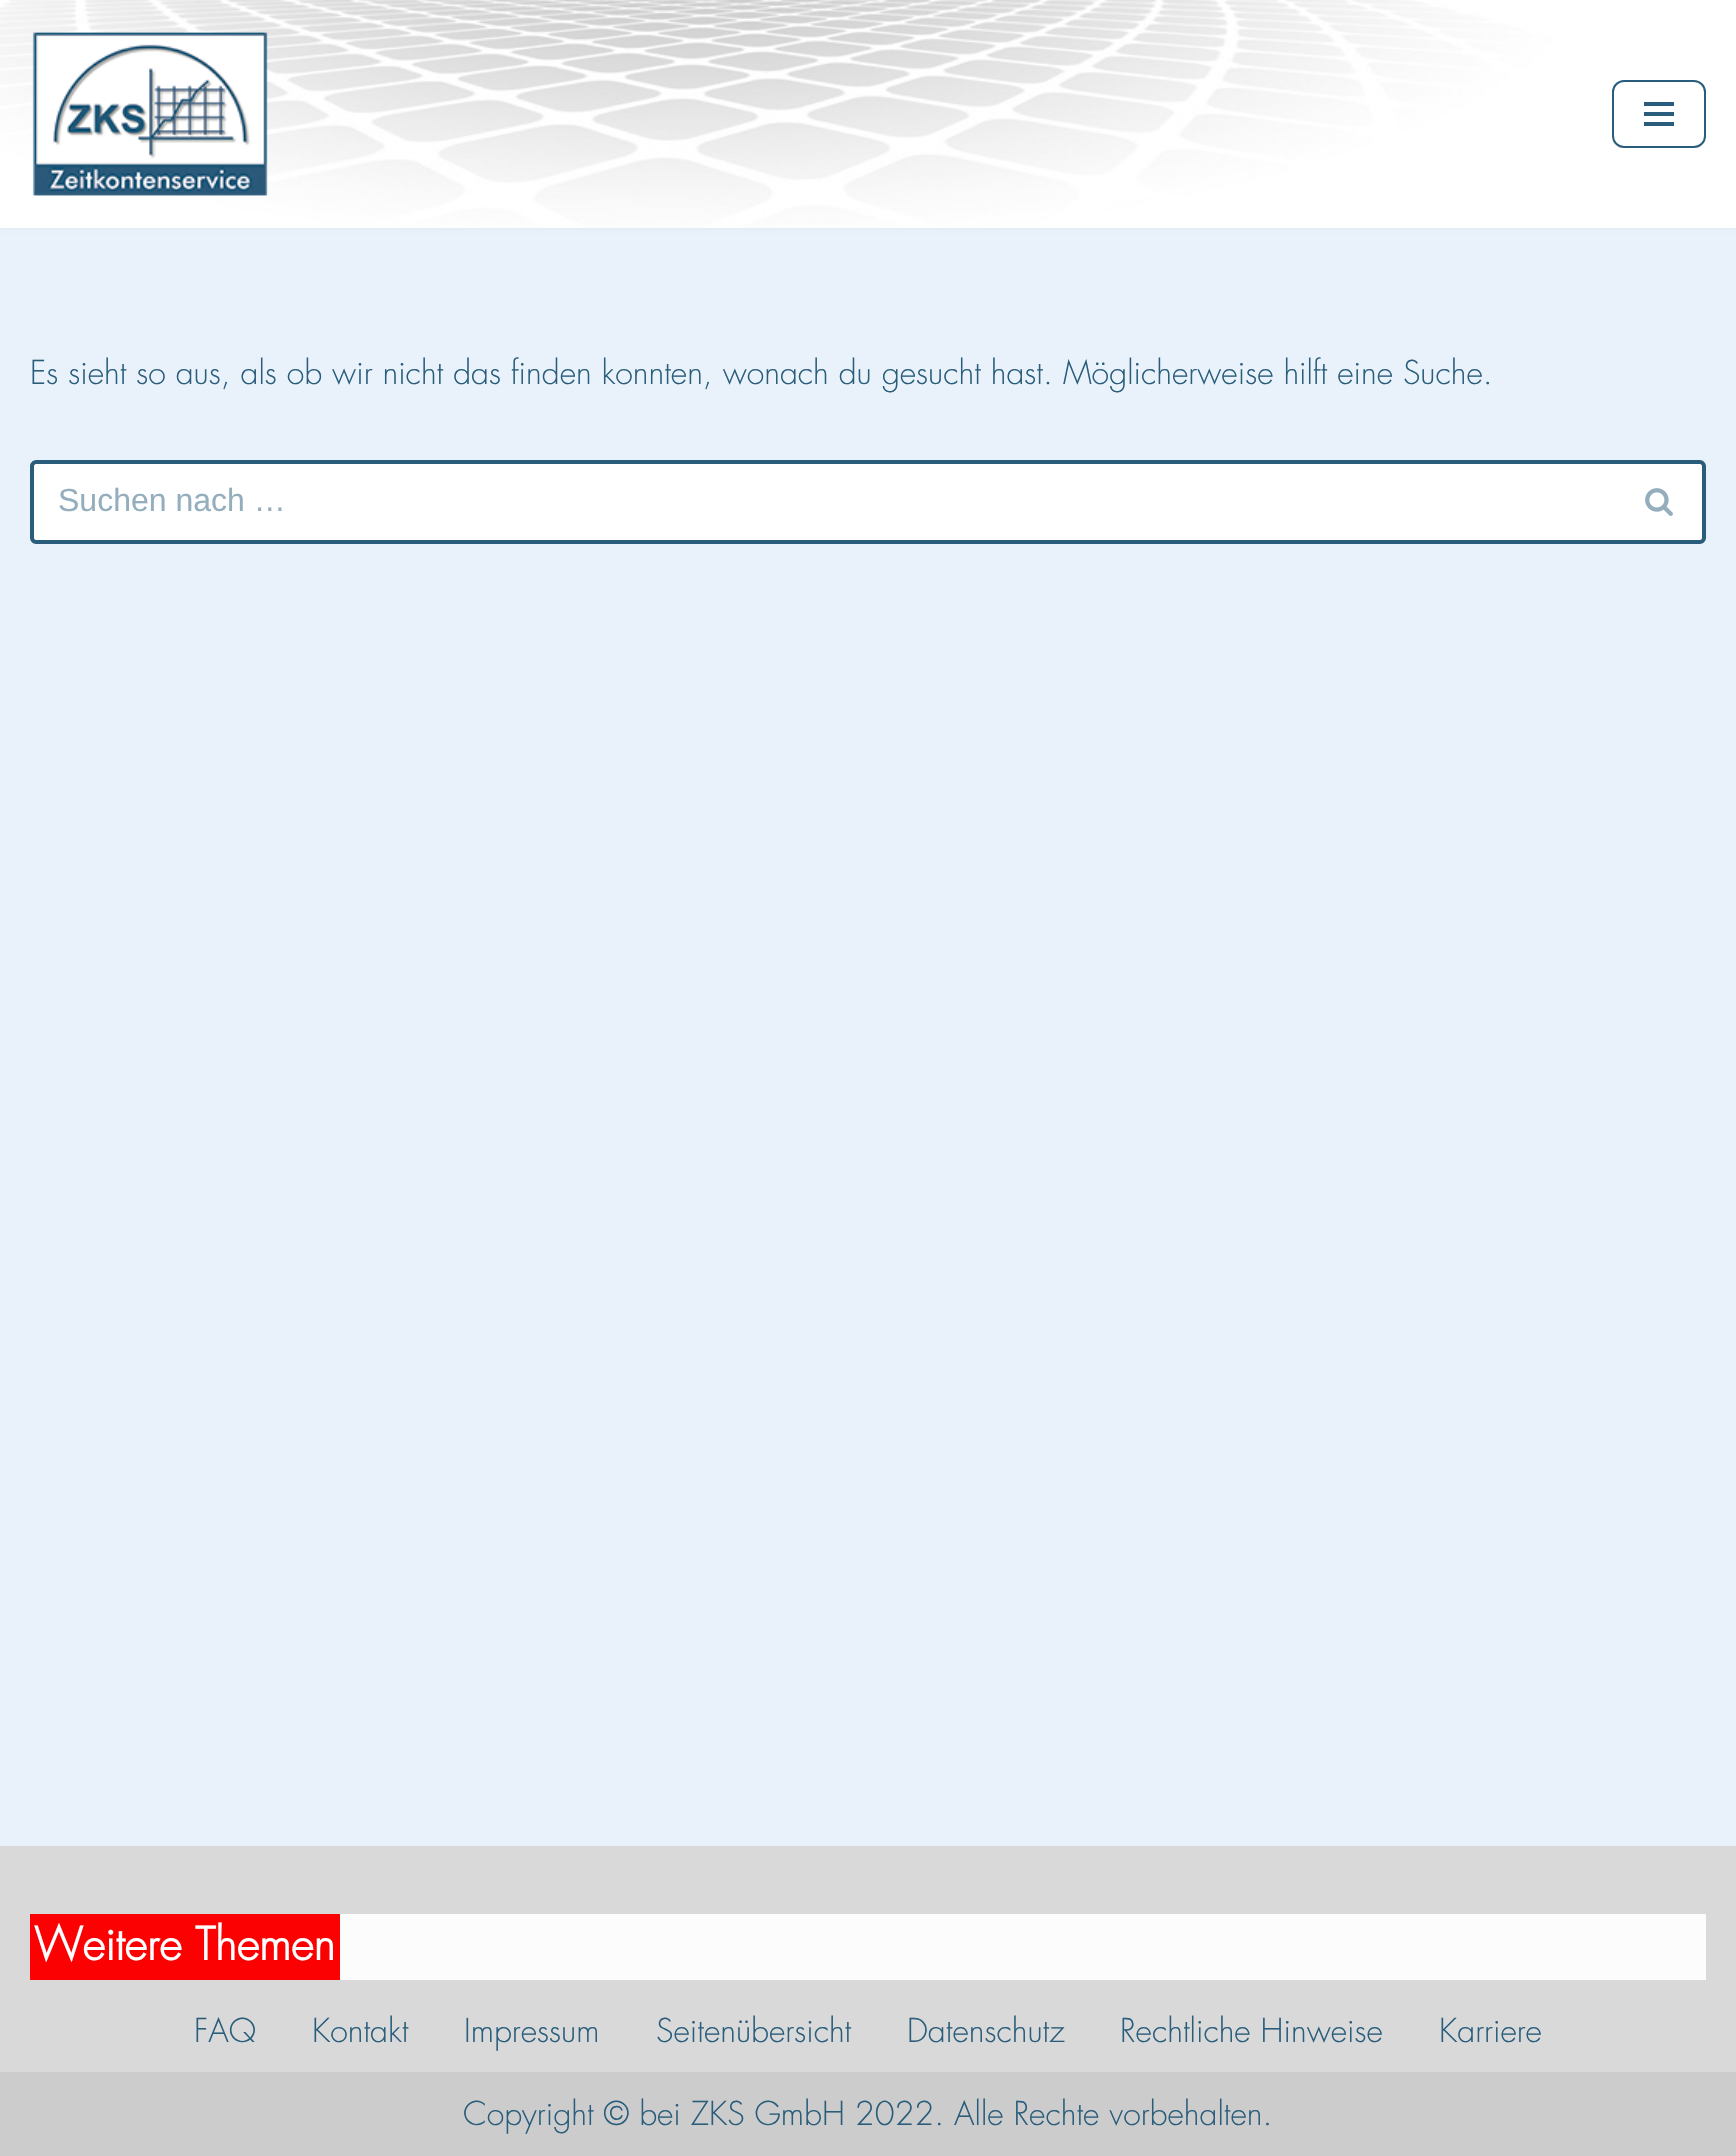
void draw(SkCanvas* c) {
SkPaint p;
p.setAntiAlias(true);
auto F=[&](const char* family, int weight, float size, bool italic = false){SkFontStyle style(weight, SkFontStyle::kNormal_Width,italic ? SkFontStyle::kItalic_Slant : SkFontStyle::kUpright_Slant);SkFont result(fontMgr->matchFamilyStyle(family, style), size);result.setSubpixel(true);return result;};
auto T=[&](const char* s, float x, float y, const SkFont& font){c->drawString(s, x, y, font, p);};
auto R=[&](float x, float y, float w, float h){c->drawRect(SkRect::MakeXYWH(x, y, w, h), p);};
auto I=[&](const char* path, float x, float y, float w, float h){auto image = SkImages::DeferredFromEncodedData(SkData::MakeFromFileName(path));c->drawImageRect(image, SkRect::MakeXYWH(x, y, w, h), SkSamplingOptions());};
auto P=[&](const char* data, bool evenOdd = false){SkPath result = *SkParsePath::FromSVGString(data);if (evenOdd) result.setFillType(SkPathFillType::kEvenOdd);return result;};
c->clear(0xffe9f2fa);
p.setColor(0x1a000000);
p.setMaskFilter(SkMaskFilter::MakeBlur(kNormal_SkBlurStyle, 3));
c->drawRect(SkRect::MakeXYWH(0,-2,1736,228),p);
p.setMaskFilter(nullptr);
I("1.png",0,0,1736,228);
I("2.png",32,32,236,164);
p.setStroke(true);
p.setStrokeWidth(2);
p.setColor(0xff295d7b);
c->drawRoundRect(SkRect::MakeXYWH(1613,81,92,66),11,11,p);
p.setStroke(false);
R(1644,102,30,4);
R(1644,112,30,4);
R(1644,122,30,4);
auto f1 = F("Futura",300,32);
T("Es sieht so aus, als ob wir nicht das finden konnten, wonach du gesucht hast. Möglicherweise hilft eine Suche.",30,384,f1);
p.setColor(0xffffffff);
c->drawPath(P("M36 460h1580v84h-1580c-3.5 0-6-2.5-6-6v-72c0-3.5 2.5-6 6-6z"),p);
p.setColor(0xff295d7b);
c->drawPath(P("M36 460h1580v84h-1580c-3 0-6-3-6-6v-72c0-3 3-6 6-6zm0 4h1580v76h-1580c-1 0-2-1-2-2v-72c0-1 1-2 2-2z",true),p);
auto f2 = F("Liberation Sans",400,32);
p.setColor(0xff94aebd);
T("Suchen nach …",58,511,f2);
p.setColor(0xffffffff);
c->drawPath(P("M1616 460h84c3.5 0 6 2.5 6 6v72c0 3.5-2.5 6-6 6h-84z"),p);
p.setColor(0xff295d7b);
c->drawPath(P("M1616 460h84c3 0 6 3 6 6v72c0 3-3 6-6 6h-84zm0 4h84c1 0 2 1 2 2v72c0 1-1 2-2 2h-84z",true),p);
I("3.png",1645,488,28,28);
p.setColor(0xffd9d9d9);
R(0,1846,1736,226);
p.setColor(0xfffdfcfc);
R(340,1914,1366,66);
p.setColor(0xfffc0101);
R(30,1914,310,66);
auto f3 = F("Futura",700,44);
p.setColor(0xffffffff);
T("Weitere Themen",34,1960,f3);
p.setColor(0xff295d7b);
T("FAQ",194,2042,f1);
T("Kontakt",312,2042,f1);
T("Impressum",464,2042,f1);
T("Seitenübersicht",656,2042,f1);
T("Datenschutz",907,2042,f1);
T("Rechtliche Hinweise",1120,2042,f1);
T("Karriere",1439,2042,f1);
p.setColor(0xffcccccc);
R(0,2072,1736,84);
p.setColor(0xff295d7b);
T("Copyright © bei ZKS GmbH 2022. Alle Rechte vorbehalten.",463,2125,f1);
}
